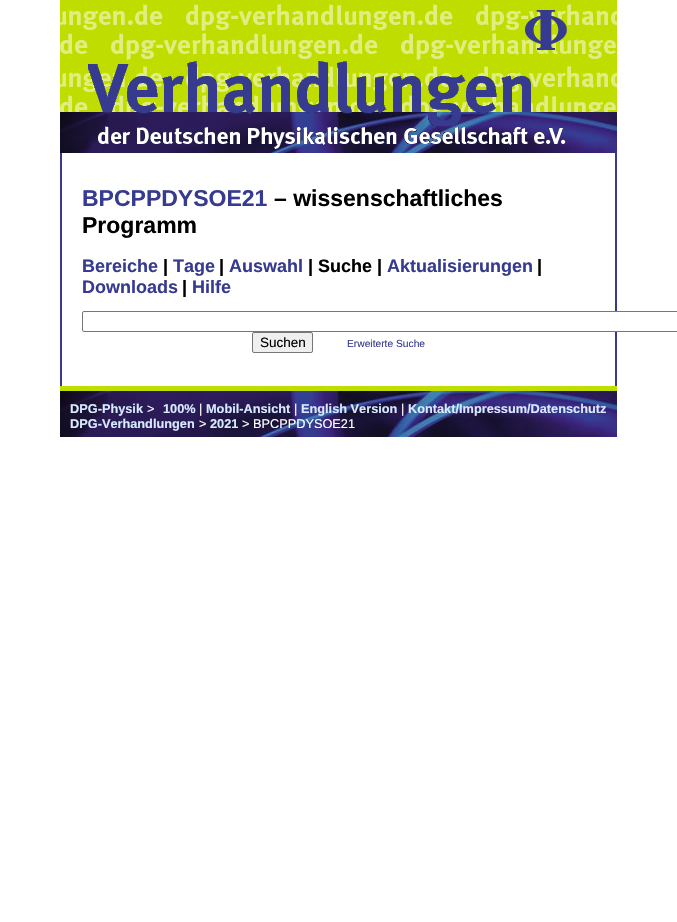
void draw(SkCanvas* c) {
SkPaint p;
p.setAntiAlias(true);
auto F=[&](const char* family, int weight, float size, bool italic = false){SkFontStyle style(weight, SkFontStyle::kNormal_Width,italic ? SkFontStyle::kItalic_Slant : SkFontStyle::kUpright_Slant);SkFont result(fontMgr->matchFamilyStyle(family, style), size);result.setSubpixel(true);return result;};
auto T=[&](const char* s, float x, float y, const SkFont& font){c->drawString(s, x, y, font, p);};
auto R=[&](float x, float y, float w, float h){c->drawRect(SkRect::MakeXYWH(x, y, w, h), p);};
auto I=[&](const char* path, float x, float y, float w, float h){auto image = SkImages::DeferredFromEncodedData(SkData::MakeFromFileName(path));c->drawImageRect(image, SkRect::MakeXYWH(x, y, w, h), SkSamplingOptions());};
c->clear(0xffffffff);
I("1.png",60,0,557,112);
I("2.png",525,10,42,40);
I("3.png",88,61,443,51);
I("4.png",60,112,557,41);
I("5.png",138,112,350,14);
I("6.png",98,126,468,23);
p.setColor(0xff363b90);
R(615,153,2,233);
R(60,153,2,233);
auto f1 = F("Liberation Sans",700,23);
T("BPCPPDYSOE21",82,206,f1);
p.setColor(0xff000000);
T("– wissenschaftliches",274,206,f1);
T("Programm",82,233,f1);
auto f2 = F("Liberation Sans",700,18);
p.setColor(0xff363b90);
T("Bereiche",82,272,f2);
p.setColor(0xff000000);
T("|",163,272,f2);
p.setColor(0xff363b90);
T("Tage",173,272,f2);
p.setColor(0xff000000);
T("|",219,272,f2);
p.setColor(0xff363b90);
T("Auswahl",229,272,f2);
p.setColor(0xff000000);
T("| Suche |",308,272,f2);
p.setColor(0xff363b90);
T("Aktualisierungen",387,272,f2);
p.setColor(0xff000000);
T("|",537,272,f2);
p.setColor(0xff363b90);
T("Downloads",82,293,f2);
p.setColor(0xff000000);
T("|",182,293,f2);
p.setColor(0xff363b90);
T("Hilfe",192,293,f2);
p.setColor(0xffffffff);
c->drawRoundRect(SkRect::MakeXYWH(82.5,311.5,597,20),1.5,1.5,p);
p.setStroke(true);
p.setStrokeWidth(1);
p.setColor(0xff767676);
c->drawRoundRect(SkRect::MakeXYWH(82.5,311.5,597,20),1.5,1.5,p);
p.setStroke(false);
p.setColor(0xffefefef);
c->drawRoundRect(SkRect::MakeXYWH(252.5,332.5,60,20),1.5,1.5,p);
p.setStroke(true);
p.setColor(0xff767676);
c->drawRoundRect(SkRect::MakeXYWH(252.5,332.5,60,20),1.5,1.5,p);
auto f3 = F("Liberation Sans",400,13.5);
p.setStroke(false);
p.setColor(0xff000000);
T("Suchen",260,347,f3);
auto f4 = F("Liberation Sans",400,10.25);
p.setColor(0xff363b90);
T("Erweiterte Suche",347,347,f4);
I("7.png",60,391,557,46);
p.setColor(0xffc0dd00);
R(60,386,557,5);
auto f5 = F("Liberation Sans",700,12.75);
p.setColor(0xffd8eaff);
T("DPG-Physik",70,413,f5);
auto f6 = F("Liberation Sans",400,12.75);
p.setColor(0xffffffff);
T(">",147,413,f6);
p.setColor(0xffd8eaff);
T("100%",163,413,f5);
p.setColor(0xffffffff);
T("|",199,413,f6);
p.setColor(0xffd8eaff);
T("Mobil-Ansicht",206,413,f5);
p.setColor(0xffffffff);
T("|",294,413,f6);
p.setColor(0xffd8eaff);
T("English Version",301,413,f5);
p.setColor(0xffffffff);
T("|",401,413,f6);
p.setColor(0xffd8eaff);
T("Kontakt/Impressum/Datenschutz",408,413,f5);
T("DPG-Verhandlungen",70,428,f5);
p.setColor(0xffffffff);
T(">",199,428,f6);
p.setColor(0xffd8eaff);
T("2021",210,428,f5);
p.setColor(0xffffffff);
T("> BPCPPDYSOE21",242,428,f6);
}
